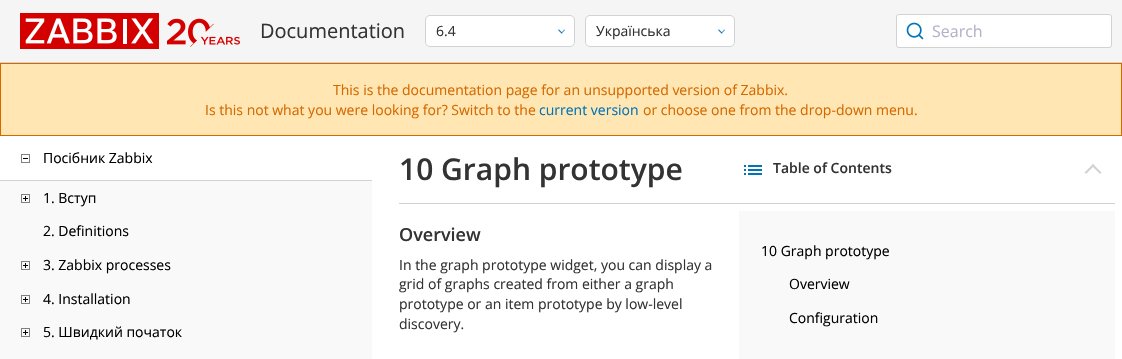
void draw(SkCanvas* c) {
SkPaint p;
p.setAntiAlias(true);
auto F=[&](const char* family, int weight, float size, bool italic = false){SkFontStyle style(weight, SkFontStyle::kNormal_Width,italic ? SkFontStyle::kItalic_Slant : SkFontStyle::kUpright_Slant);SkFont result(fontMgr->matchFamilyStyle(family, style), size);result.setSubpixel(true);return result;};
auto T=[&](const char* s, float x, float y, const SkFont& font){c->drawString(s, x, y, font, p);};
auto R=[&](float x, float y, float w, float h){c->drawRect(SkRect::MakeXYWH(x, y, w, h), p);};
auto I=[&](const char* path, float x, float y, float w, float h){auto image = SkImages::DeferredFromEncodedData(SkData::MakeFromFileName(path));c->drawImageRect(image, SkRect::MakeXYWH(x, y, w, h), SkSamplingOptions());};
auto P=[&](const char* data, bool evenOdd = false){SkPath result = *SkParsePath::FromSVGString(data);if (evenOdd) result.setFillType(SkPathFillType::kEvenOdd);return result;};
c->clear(0xffffffff);
p.setColor(0xfff5f5f5);
R(0,0,1122,62);
p.setColor(0xffd2d2d2);
R(0,62,1122,1);
I("1.png",20,13,220,36);
auto f1 = F("Open Sans",400,20);
p.setColor(0xff333333);
T("Documentation",260,38,f1);
p.setColor(0xffffffff);
c->drawRoundRect(SkRect::MakeXYWH(425.5,15.5,149,31),4.5,4.5,p);
p.setStroke(true);
p.setStrokeWidth(1);
p.setColor(0xffd2d2d2);
c->drawRoundRect(SkRect::MakeXYWH(425.5,15.5,149,31),4.5,4.5,p);
auto f2 = F("Open Sans",400,14);
p.setStroke(false);
p.setColor(0xff333333);
T("6.4",436,36,f2);
p.setColor(0xff0174b7);
c->drawPath(P("M565 30l-3.5 3.5l-.5-.5l3.5-3.5z"),p);
c->drawPath(P("M562.5 33l-1 .5l-3.5-3.5l1-.5z"),p);
p.setColor(0xffffffff);
c->drawRoundRect(SkRect::MakeXYWH(585.5,15.5,149,31),4.5,4.5,p);
p.setStroke(true);
p.setColor(0xffd2d2d2);
c->drawRoundRect(SkRect::MakeXYWH(585.5,15.5,149,31),4.5,4.5,p);
p.setStroke(false);
p.setColor(0xff333333);
T("Українська",596,36,f2);
p.setColor(0xff0174b7);
c->drawPath(P("M725 30l-3.5 3.5l-.5-.5l3.5-3.5z"),p);
c->drawPath(P("M722.5 33l-1 .5l-3.5-3.5l1-.5z"),p);
p.setColor(0xffffffff);
c->drawRoundRect(SkRect::MakeXYWH(896.5,14.5,215,33),2.5,2.5,p);
p.setStroke(true);
p.setColor(0xffd2d2d2);
c->drawRoundRect(SkRect::MakeXYWH(896.5,14.5,215,33),2.5,2.5,p);
I("2.png",906,22,18,18);
auto f3 = F("Open Sans",400,16);
p.setStroke(false);
p.setColor(0xffb3b2c8);
T("Search",932,37,f3);
p.setColor(0xffffe6b3);
c->drawRect(SkRect::MakeXYWH(.5,63.5,1121,72),p);
p.setStroke(true);
p.setColor(0xffd56900);
c->drawRect(SkRect::MakeXYWH(.5,63.5,1121,72),p);
p.setStroke(false);
T("This is the documentation page for an unsupported version of Zabbix.",333,95,f2);
T("Is this not what you were looking for? Switch to the",205,115,f2);
p.setColor(0xff0174b7);
T("current version",539,115,f2);
p.setColor(0xffd56900);
T("or choose one from the drop-down menu.",643,115,f2);
p.setColor(0xffd2d2d2);
R(0,180,372,1);
I("3.png",21,154,9,9);
p.setColor(0xff000000);
T("Посібник Zabbix",43,163,f2);
p.setColor(0xfff9f9f9);
R(0,181,372,178);
I("4.png",21,194,9,9);
p.setColor(0xff000000);
T("1. Вступ",43,203,f2);
T("2. Definitions",43,236,f2);
I("4.png",21,261,9,9);
T("3. Zabbix processes",43,270,f2);
I("4.png",21,295,9,9);
T("4. Installation",43,304,f2);
I("4.png",21,328,9,9);
T("5. Швидкий початок",43,337,f2);
auto f4 = F("Open Sans",600,30);
p.setColor(0xff333333);
T("10 Graph prototype",399,180,f4);
p.setColor(0xffd2d2d2);
R(399,203,716,1);
I("5.png",744,165,18,10);
auto f5 = F("Open Sans",600,14);
p.setColor(0xff333333);
T("Table of Contents",773,173,f5);
p.setColor(0xffd2d2d2);
c->drawPath(P("M1084.5 172.5l8.5-8.5l1.5 1.5l-8.5 8.5z"),p);
c->drawPath(P("M1091.5 165.5l1.5-1.5l8.5 8.5l-1.5 1.5z"),p);
p.setColor(0xfff9f9f9);
R(739,211,376,148);
p.setColor(0xff000000);
T("10 Graph prototype",761,256,f2);
T("Overview",789,289,f2);
T("Configuration",789,323,f2);
auto f6 = F("Open Sans",600,18);
p.setColor(0xff333333);
T("Overview",399,241,f6);
T("In the graph prototype widget, you can display a",399,270,f2);
T("grid of graphs created from either a graph",399,289,f2);
T("prototype or an item prototype by low-level",399,309,f2);
T("discovery.",399,329,f2);
}
